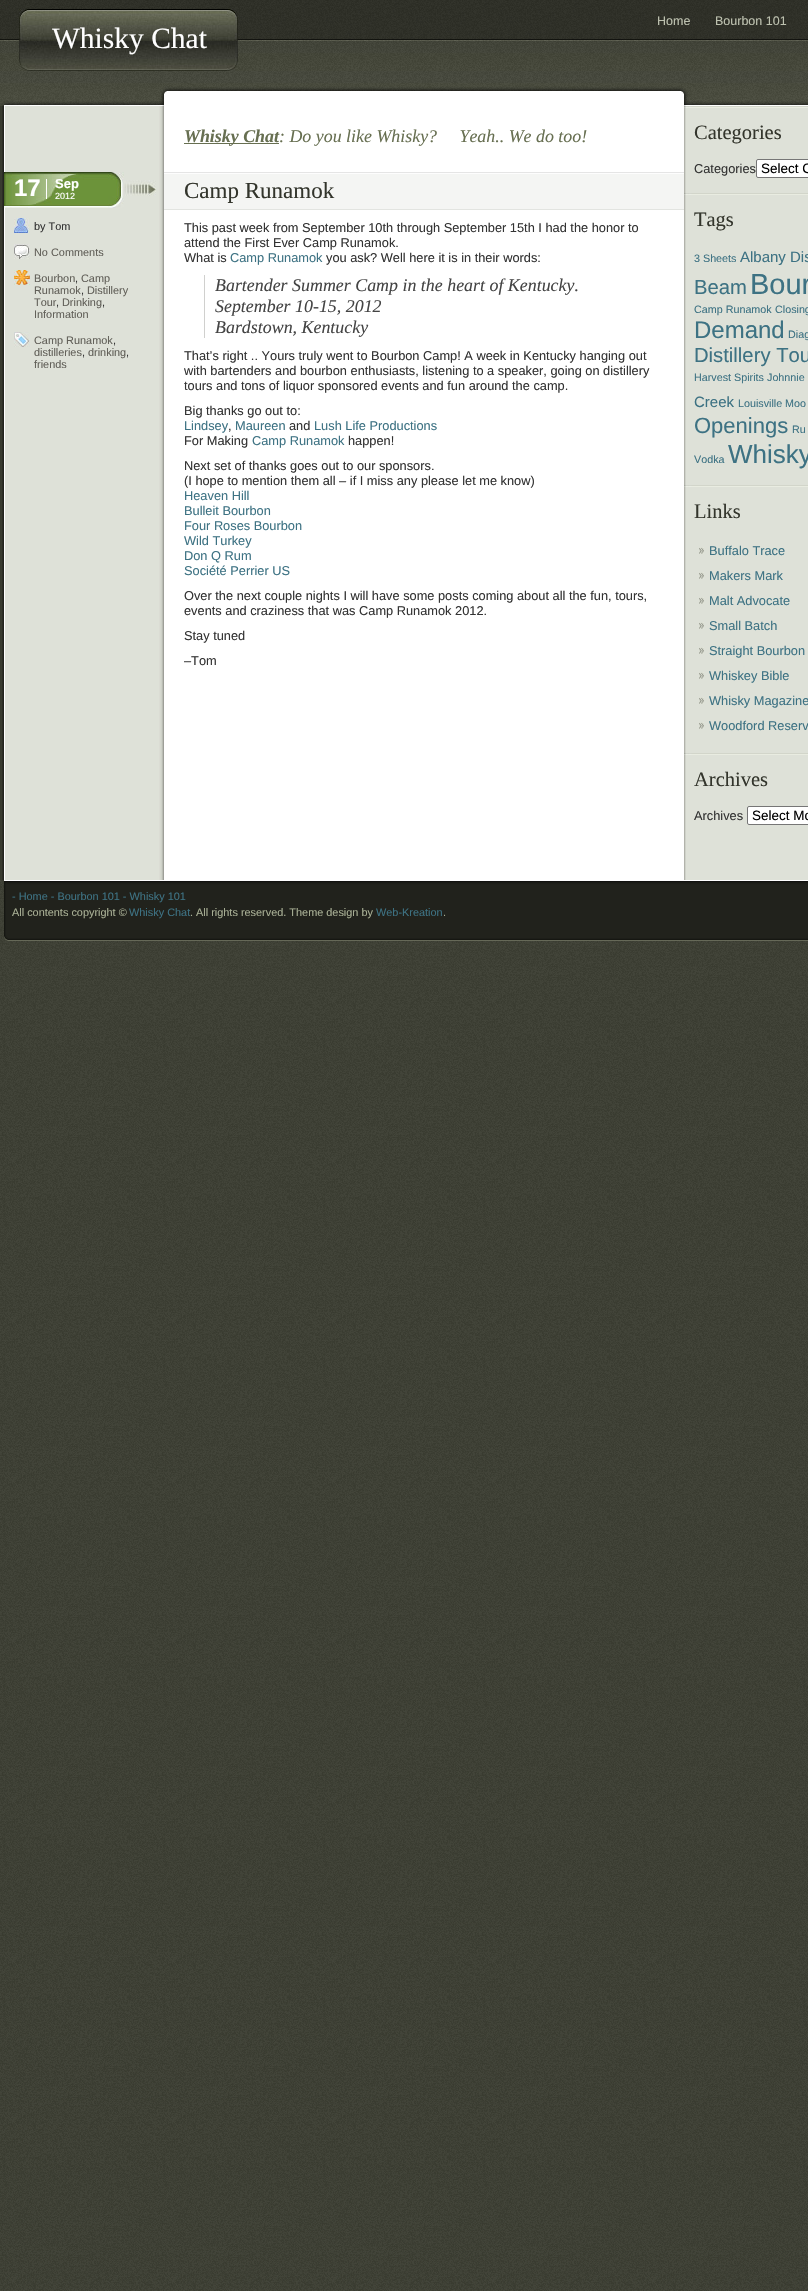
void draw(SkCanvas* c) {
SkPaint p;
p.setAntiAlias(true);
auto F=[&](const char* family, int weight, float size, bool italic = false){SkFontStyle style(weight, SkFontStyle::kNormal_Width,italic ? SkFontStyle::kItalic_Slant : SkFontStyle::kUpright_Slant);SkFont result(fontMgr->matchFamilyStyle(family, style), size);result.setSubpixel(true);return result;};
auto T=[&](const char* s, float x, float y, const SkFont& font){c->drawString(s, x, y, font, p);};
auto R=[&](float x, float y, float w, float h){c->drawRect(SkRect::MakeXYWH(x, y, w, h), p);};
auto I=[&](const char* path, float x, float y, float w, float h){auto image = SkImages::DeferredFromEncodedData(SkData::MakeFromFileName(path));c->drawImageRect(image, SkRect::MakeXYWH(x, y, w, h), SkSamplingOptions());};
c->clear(0xffffffff);
I("1.png",0,880,808,1411);
I("2.png",0,0,808,83);
I("3.png",0,83,808,23);
p.setStroke(true);
p.setStrokeWidth(1);
p.setColor(0xff2f3028);
c->drawRect(SkRect::MakeXYWH(648.5,8.5,51,25),p);
auto f1 = F("Liberation Sans",400,12.5);
p.setStroke(false);
p.setColor(0xffbdc1af);
T("Home",657,25,f1);
p.setStroke(true);
p.setColor(0xff2f3028);
c->drawRect(SkRect::MakeXYWH(706.5,8.5,89,25),p);
p.setStroke(false);
p.setColor(0xffbdc1af);
T("Bourbon 101",715,25,f1);
p.setStroke(true);
p.setColor(0xff2f3028);
c->drawRect(SkRect::MakeXYWH(802.5,8.5,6,25),p);
I("4.png",19,9,219,62);
auto f2 = F("Liberation Serif",400,29.5);
p.setStroke(false);
p.setColor(0xffffffff);
T("Whisky Chat",52,48,f2);
I("5.png",0,106,808,774);
p.setColor(0xff676f51);
R(184,143,95,1);
auto f3 = F("Liberation Serif",700,17.9,true);
T("Whisky Chat",184,142,f3);
auto f4 = F("Liberation Serif",400,17.9,true);
T(": Do you like Whisky?     Yeah.. We do too!",279,142,f4);
I("6.png",4,172,152,36);
p.setColor(0xffffffff);
R(46,179,1,20);
auto f5 = F("Liberation Sans",700,24);
T("17",14,196,f5);
auto f6 = F("Liberation Sans",700,13);
T("Sep",55,188,f6);
auto f7 = F("Liberation Sans",400,9);
T("2012",55,199,f7);
I("7.png",14,218,16,15);
auto f8 = F("Liberation Sans",400,10.9);
p.setColor(0xff333333);
T("by Tom",34,230,f8);
I("8.png",14,244,16,15);
p.setColor(0xff615f58);
T("No Comments",34,256,f8);
I("9.png",14,270,16,15);
T("Bourbon",34,282,f8);
p.setColor(0xff333333);
T(",",75,282,f8);
p.setColor(0xff615f58);
T("Camp",81,282,f8);
T("Runamok",34,294,f8);
p.setColor(0xff333333);
T(",",81,294,f8);
p.setColor(0xff615f58);
T("Distillery",87,294,f8);
T("Tour",34,306,f8);
p.setColor(0xff333333);
T(",",56,306,f8);
p.setColor(0xff615f58);
T("Drinking",62,306,f8);
p.setColor(0xff333333);
T(",",102,306,f8);
p.setColor(0xff615f58);
T("Information",34,318,f8);
I("10.png",14,332,16,15);
T("Camp Runamok",34,344,f8);
p.setColor(0xff333333);
T(",",113,344,f8);
p.setColor(0xff615f58);
T("distilleries",34,356,f8);
p.setColor(0xff333333);
T(",",82,356,f8);
p.setColor(0xff615f58);
T("drinking",88,356,f8);
p.setColor(0xff333333);
T(",",126,356,f8);
p.setColor(0xff615f58);
T("friends",34,368,f8);
p.setColor(0xfff4f5f3);
R(164,174,520,35);
I("11.png",164,172,520,2);
p.setColor(0xffe2e4e0);
R(164,209,520,1);
auto f9 = F("Liberation Serif",400,23);
p.setColor(0xff33352c);
T("Camp Runamok",184,198,f9);
auto f10 = F("Liberation Sans",400,12.8);
p.setColor(0xff333333);
T("This past week from September 10th through September 15th I had the honor to",184,232,f10);
T("attend the First Ever Camp Runamok.",184,247,f10);
T("What is",184,262,f10);
p.setColor(0xff3d7283);
T("Camp Runamok",230,262,f10);
p.setColor(0xff333333);
T("you ask? Well here it is in their words:",326,262,f10);
p.setColor(0xffd0d0ce);
R(204,275,1,63);
p.setColor(0xff444444);
T("Bartender Summer Camp in the heart of Kentucky.",215,291,f4);
T("September 10-15, 2012",215,312,f4);
T("Bardstown, Kentucky",215,333,f4);
p.setColor(0xff333333);
T("That’s right .. Yours truly went to Bourbon Camp! A week in Kentucky hanging out",184,360,f10);
T("with bartenders and bourbon enthusiasts, listening to a speaker, going on distillery",184,375,f10);
T("tours and tons of liquor sponsored events and fun around the camp.",184,390,f10);
T("Big thanks go out to:",184,415,f10);
p.setColor(0xff3d7283);
T("Lindsey",184,430,f10);
p.setColor(0xff333333);
T(",",228,430,f10);
p.setColor(0xff3d7283);
T("Maureen",235,430,f10);
p.setColor(0xff333333);
T("and",289,430,f10);
p.setColor(0xff3d7283);
T("Lush Life Productions",314,430,f10);
p.setColor(0xff333333);
T("For Making",184,445,f10);
p.setColor(0xff3d7283);
T("Camp Runamok",252,445,f10);
p.setColor(0xff333333);
T("happen!",348,445,f10);
T("Next set of thanks goes out to our sponsors.",184,470,f10);
T("(I hope to mention them all – if I miss any please let me know)",184,485,f10);
p.setColor(0xff3d7283);
T("Heaven Hill",184,500,f10);
T("Bulleit Bourbon",184,515,f10);
T("Four Roses Bourbon",184,530,f10);
T("Wild Turkey",184,545,f10);
T("Don Q Rum",184,560,f10);
T("Société Perrier US",184,575,f10);
p.setColor(0xff333333);
T("Over the next couple nights I will have some posts coming about all the fun, tours,",184,600,f10);
T("events and craziness that was Camp Runamok 2012.",184,615,f10);
T("Stay tuned",184,640,f10);
T("–Tom",184,665,f10);
I("12.png",684,106,124,2);
auto f11 = F("Liberation Serif",400,20.5);
p.setColor(0xff33352c);
T("Categories",694,139,f11);
p.setColor(0xff333333);
T("Categories",694,173,f10);
p.setColor(0xffffffff);
c->drawRoundRect(SkRect::MakeXYWH(756.5,159.5,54,18),1.5,1.5,p);
p.setStroke(true);
p.setColor(0xff767676);
c->drawRoundRect(SkRect::MakeXYWH(756.5,159.5,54,18),1.5,1.5,p);
auto f12 = F("Liberation Sans",400,13.5);
p.setStroke(false);
p.setColor(0xff000000);
T("Select C",761,173,f12);
I("12.png",684,193,124,2);
p.setColor(0xff33352c);
T("Tags",694,226,f11);
auto f13 = F("Liberation Sans",400,10.75);
p.setColor(0xff3d7283);
T("3 Sheets",694,262,f13);
auto f14 = F("Liberation Sans",400,15);
T("Albany Dis",740,262,f14);
auto f15 = F("Liberation Sans",400,20.25);
T("Beam",694,294,f15);
auto f16 = F("Liberation Sans",400,29);
T("Bour",750,294,f16);
T("Camp Runamok",694,313,f13);
T("Closing",775,313,f13);
auto f17 = F("Liberation Sans",400,24);
T("Demand",694,338,f17);
T("Diag",788,338,f13);
T("Distillery Tou",694,362,f15);
T("Harvest Spirits",694,381,f13);
T("Johnnie",767,381,f13);
T("Creek",694,407,f14);
T("Louisville",738,407,f13);
T("Moo",785,407,f13);
auto f18 = F("Liberation Sans",400,22);
T("Openings",694,433,f18);
T("Ru",792,433,f13);
T("Vodka",694,463,f13);
auto f19 = F("Liberation Sans",400,26);
T("Whisky",728,463,f19);
I("12.png",684,485,124,2);
p.setColor(0xff33352c);
T("Links",694,518,f11);
I("13.png",699,547,5,7);
p.setColor(0xff3d7283);
T("Buffalo Trace",709,555,f10);
I("13.png",699,572,5,7);
T("Makers Mark",709,580,f10);
I("13.png",699,597,5,7);
T("Malt Advocate",709,605,f10);
I("13.png",699,622,5,7);
T("Small Batch",709,630,f10);
I("13.png",699,647,5,7);
T("Straight Bourbon",709,655,f10);
I("13.png",699,672,5,7);
T("Whiskey Bible",709,680,f10);
I("13.png",699,697,5,7);
T("Whisky Magazine",709,705,f10);
I("13.png",699,722,5,7);
T("Woodford Reserv",709,730,f10);
I("12.png",684,753,124,2);
p.setColor(0xff33352c);
T("Archives",694,786,f11);
p.setColor(0xff333333);
T("Archives",694,820,f10);
p.setColor(0xffffffff);
c->drawRoundRect(SkRect::MakeXYWH(747.5,806.5,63,18),1.5,1.5,p);
p.setStroke(true);
p.setColor(0xff767676);
c->drawRoundRect(SkRect::MakeXYWH(747.5,806.5,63,18),1.5,1.5,p);
p.setStroke(false);
p.setColor(0xff000000);
T("Select Mo",752,820,f12);
I("14.png",4,880,804,61);
I("15.png",4,882,4,59);
p.setColor(0xff3d7283);
T("- Home - Bourbon 101 - Whisky 101",12,900,f8);
p.setColor(0xffa9b095);
T("All contents copyright ©",12,916,f8);
p.setColor(0xff3d7283);
T("Whisky Chat",129,916,f8);
p.setColor(0xffa9b095);
T(". All rights reserved. Theme design by",190,916,f8);
p.setColor(0xff3d7283);
T("Web-Kreation",376,916,f8);
p.setColor(0xffa9b095);
T(".",443,916,f8);
}
